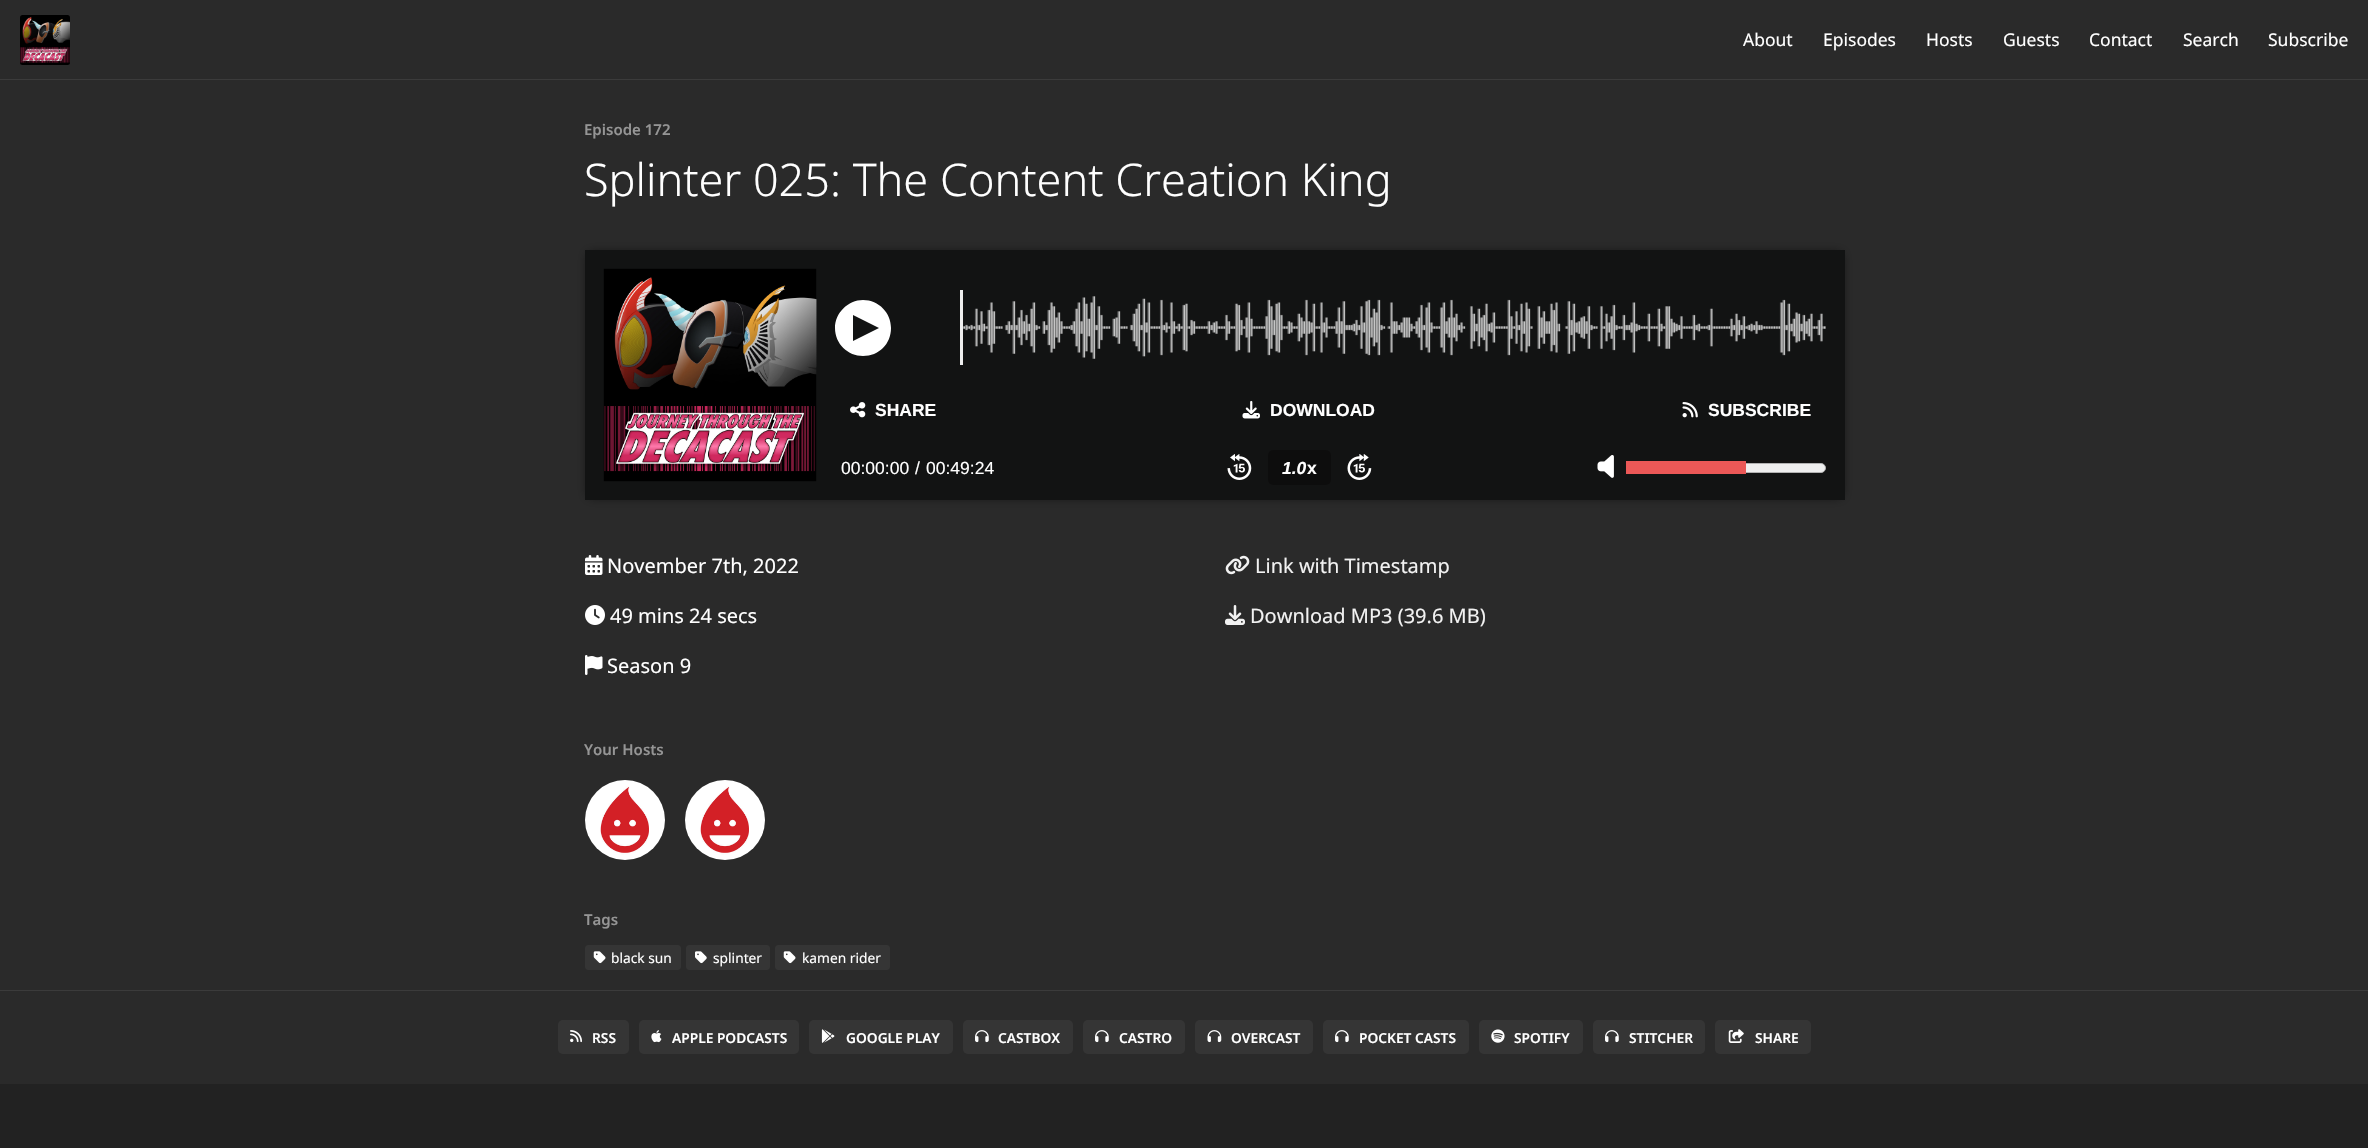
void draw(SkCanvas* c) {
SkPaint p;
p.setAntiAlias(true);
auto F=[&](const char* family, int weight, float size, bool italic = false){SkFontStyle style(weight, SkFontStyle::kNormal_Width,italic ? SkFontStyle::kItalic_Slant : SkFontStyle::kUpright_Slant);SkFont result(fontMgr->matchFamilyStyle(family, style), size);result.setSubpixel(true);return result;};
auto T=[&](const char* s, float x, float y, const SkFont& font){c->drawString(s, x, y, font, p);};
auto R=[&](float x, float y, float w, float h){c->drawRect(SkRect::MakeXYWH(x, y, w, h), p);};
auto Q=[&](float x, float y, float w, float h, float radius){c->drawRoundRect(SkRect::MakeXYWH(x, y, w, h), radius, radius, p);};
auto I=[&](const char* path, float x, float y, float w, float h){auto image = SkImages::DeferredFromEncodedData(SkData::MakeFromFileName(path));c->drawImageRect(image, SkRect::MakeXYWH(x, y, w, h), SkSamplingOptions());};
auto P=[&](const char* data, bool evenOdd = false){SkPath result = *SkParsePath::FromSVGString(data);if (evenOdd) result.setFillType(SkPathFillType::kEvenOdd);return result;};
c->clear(0xff222222);
p.setColor(0xff2a2a2a);
R(0,0,2368,79);
p.setColor(0xff3b3b3b);
R(0,79,2368,1);
I("1.png",20,15,50,50);
auto f1 = F("Noto Sans",400,17.5);
p.setColor(0xffffffff);
T("About",1743,46,f1);
T("Episodes",1823,46,f1);
T("Hosts",1926,46,f1);
T("Guests",2003,46,f1);
T("Contact",2089,46,f1);
T("Search",2183,46,f1);
T("Subscribe",2268,46,f1);
p.setColor(0xff2a2a2a);
R(0,80,2368,910);
auto f2 = F("Noto Sans",600,15);
p.setColor(0xff959595);
T("Episode 172",584,135,f2);
auto f3 = F("Noto Sans",300,45);
p.setColor(0xffffffff);
T("Splinter 025: The Content Creation King",584,196,f3);
p.setColor(0xcc000000);
p.setMaskFilter(SkMaskFilter::MakeBlur(kNormal_SkBlurStyle, 5.5));
c->drawRect(SkRect::MakeXYWH(589,254,1252,242),p);
p.setMaskFilter(nullptr);
p.setColor(0xff121313);
R(585,250,1260,250);
I("2.png",603,268,214,214);
I("3.png",816,299,1,68);
p.setColor(0xffffffff);
c->drawPath(P("M863 300c-15 0-28 13-28 28c0 16 13 28 28 28c16 0 28-12 28-28c0-15-12-28-28-28zm-10 41v-26l26 13z"),p);
p.setColor(0xffeeeeee);
R(960,290,3,75);
I("4.png",963,296,863,63);
I("5.png",850,402,16,16);
auto f4 = F("Liberation Sans",700,17.5);
p.setColor(0xffffffff);
T("SHARE",875,416,f4);
I("6.png",1242,400,18,19);
T("DOWNLOAD",1270,416,f4);
I("7.png",1682,402,16,16);
T("SUBSCRIBE",1708,416,f4);
auto f5 = F("Liberation Sans",400,17.5);
T("00:00:00",841,474,f5);
T("/",915,474,f5);
T("00:49:24",926,474,f5);
I("8.png",1227,454,25,26);
p.setColor(0xff0d0d0d);
Q(1268,450,63,35,5);
auto f6 = F("Liberation Sans",700,17.5,true);
p.setColor(0xffffffff);
T("1.0",1282,474,f6);
T("x",1307,474,f4);
I("9.png",1347,454,25,26);
I("10.png",1597,455,17,23);
p.setColor(0xffefefef);
c->drawRoundRect(SkRect::MakeXYWH(1626.5,463.5,199,9),4.5,4.5,p);
p.setStroke(true);
p.setStrokeWidth(1);
p.setColor(0xffb2b2b2);
c->drawRoundRect(SkRect::MakeXYWH(1626.5,463.5,199,9),4.5,4.5,p);
p.setStroke(false);
p.setColor(0xffeb5857);
R(1626,461,120,13);
I("11.png",585,555,18,20);
auto f7 = F("Noto Sans",400,20);
p.setColor(0xffffffff);
T("November 7th, 2022",607,573,f7);
I("12.png",585,605,20,20);
T("49 mins 24 secs",610,623,f7);
I("13.png",585,655,18,20);
T("Season 9",607,673,f7);
I("14.png",1225,555,25,20);
p.setColor(0xfff2f2f2);
T("Link with Timestamp",1255,573,f7);
I("15.png",1225,605,20,20);
T("Download MP3 (39.6 MB)",1250,623,f7);
p.setColor(0xff959595);
T("Your Hosts",584,755,f2);
I("16.png",585,780,80,80);
I("17.png",685,780,80,80);
T("Tags",584,925,f2);
p.setColor(0xff353535);
Q(585,945,96,25,4);
I("18.png",593,951,13,13);
auto f8 = F("Noto Sans",400,13.75);
p.setColor(0xffffffff);
T("black sun",611,963,f8);
p.setColor(0xff353535);
Q(686,945,84,25,4);
I("19.png",695,951,12,13);
p.setColor(0xffffffff);
T("splinter",713,963,f8);
p.setColor(0xff353535);
Q(775,945,115,25,4);
I("18.png",783,951,13,13);
p.setColor(0xffffffff);
T("kamen rider",802,963,f8);
p.setColor(0xff2a2a2a);
R(0,991,2368,93);
p.setColor(0xff3b3b3b);
R(0,990,2368,1);
p.setColor(0xff353535);
Q(558,1020,71,34,5);
I("20.png",570,1030,12,13);
auto f9 = F("Noto Sans",600,13.75);
p.setColor(0xffffffff);
T("RSS",592,1043,f9);
p.setColor(0xff353535);
Q(639,1020,160,34,5);
I("21.png",651,1030,11,13);
p.setColor(0xffffffff);
T("APPLE PODCASTS",672,1043,f9);
p.setColor(0xff353535);
Q(809,1020,144,34,5);
I("22.png",821,1029,14,14);
p.setColor(0xffffffff);
T("GOOGLE PLAY",846,1043,f9);
p.setColor(0xff353535);
Q(963,1020,110,34,5);
I("23.png",975,1030,14,13);
p.setColor(0xffffffff);
T("CASTBOX",998,1043,f9);
p.setColor(0xff353535);
Q(1083,1020,102,34,5);
I("23.png",1095,1030,14,13);
p.setColor(0xffffffff);
T("CASTRO",1119,1043,f9);
p.setColor(0xff353535);
Q(1195,1020,118,34,5);
I("24.png",1207,1030,15,13);
p.setColor(0xffffffff);
T("OVERCAST",1231,1043,f9);
p.setColor(0xff353535);
Q(1323,1020,146,34,5);
I("23.png",1335,1030,14,13);
p.setColor(0xffffffff);
T("POCKET CASTS",1359,1043,f9);
p.setColor(0xff353535);
Q(1479,1020,104,34,5);
I("25.png",1491,1029,14,14);
p.setColor(0xffffffff);
T("SPOTIFY",1514,1043,f9);
p.setColor(0xff353535);
Q(1593,1020,112,34,5);
I("23.png",1605,1030,14,13);
p.setColor(0xffffffff);
T("STITCHER",1629,1043,f9);
p.setColor(0xff353535);
Q(1715,1020,96,34,5);
I("26.png",1728,1029,16,14);
p.setColor(0xffffffff);
T("SHARE",1755,1043,f9);
}
